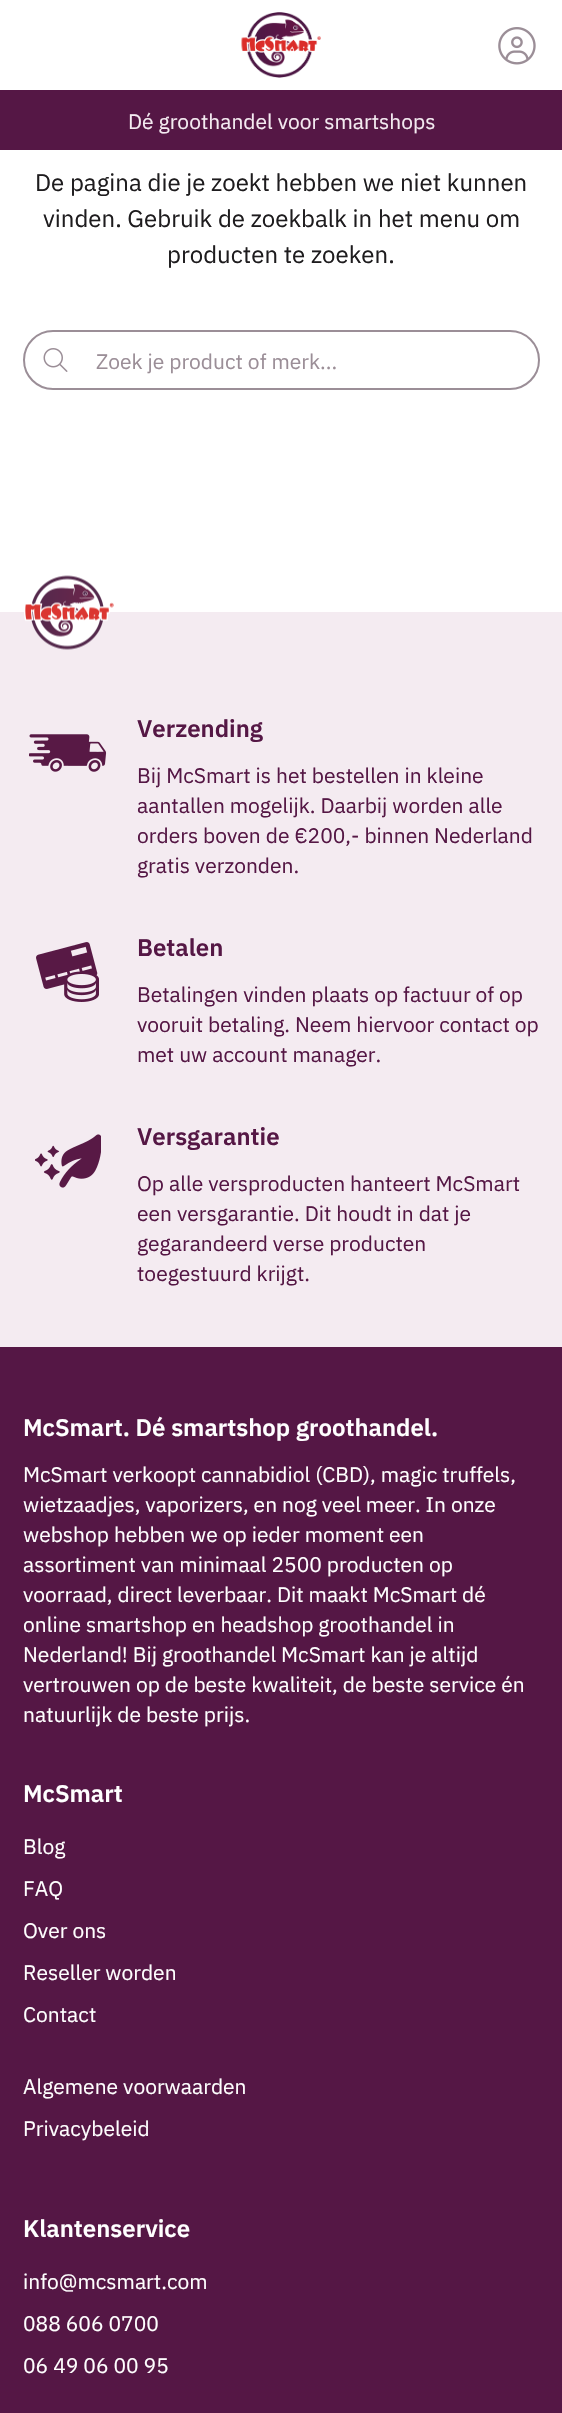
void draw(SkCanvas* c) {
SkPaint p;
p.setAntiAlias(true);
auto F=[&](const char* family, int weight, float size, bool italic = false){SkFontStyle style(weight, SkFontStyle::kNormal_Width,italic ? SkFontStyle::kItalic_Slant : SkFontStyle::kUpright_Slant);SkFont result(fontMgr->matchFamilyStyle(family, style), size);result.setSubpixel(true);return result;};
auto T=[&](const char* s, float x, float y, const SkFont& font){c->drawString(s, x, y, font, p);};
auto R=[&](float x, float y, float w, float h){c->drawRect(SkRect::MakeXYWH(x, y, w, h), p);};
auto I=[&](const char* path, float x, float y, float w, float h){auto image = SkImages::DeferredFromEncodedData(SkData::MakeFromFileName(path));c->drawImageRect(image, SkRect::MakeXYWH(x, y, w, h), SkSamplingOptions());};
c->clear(0xffffffff);
I("1.png",241,12,80,66);
I("2.png",498,27,38,38);
p.setColor(0xff551745);
R(0,90,562,60);
auto f1 = F("IBM Plex Sans",400,21);
p.setColor(0xfff4ebf1);
T("Dé groothandel voor smartshops",128,129,f1);
auto f2 = F("IBM Plex Sans",400,24);
p.setColor(0xff1e1c1e);
T("De pagina die je zoekt hebben we niet kunnen",35,191,f2);
T("vinden. Gebruik de zoekbalk in het menu om",43,227,f2);
T("producten te zoeken.",167,263,f2);
p.setStroke(true);
p.setStrokeWidth(2);
p.setColor(0xff9b8e97);
c->drawRoundRect(SkRect::MakeXYWH(24,331,515,58),29,29,p);
I("3.png",43,348,25,24);
p.setStroke(false);
T("Zoek je product of merk...",96,369,f1);
p.setColor(0xfff4ebf1);
R(0,612,562,735);
I("4.png",24,575,90,75);
I("5.png",29,734,78,38);
auto f3 = F("IBM Plex Sans",600,24);
p.setColor(0xff551745);
T("Verzending",137,737,f3);
T("Bij McSmart is het bestellen in kleine",137,783,f1);
T("aantallen mogelijk. Daarbij worden alle",137,813,f1);
T("orders boven de €200,- binnen Nederland",137,843,f1);
T("gratis verzonden.",137,873,f1);
I("6.png",36,942,63,60);
T("Betalen",137,956,f3);
T("Betalingen vinden plaats op factuur of op",137,1002,f1);
T("vooruit betaling. Neem hiervoor contact op",137,1032,f1);
T("met uw account manager.",137,1062,f1);
I("7.png",35,1134,66,54);
T("Versgarantie",137,1145,f3);
T("Op alle versproducten hanteert McSmart",137,1191,f1);
T("een versgarantie. Dit houdt in dat je",137,1221,f1);
T("gegarandeerd verse producten",137,1251,f1);
T("toegestuurd krijgt.",137,1281,f1);
R(0,1347,562,1066);
p.setColor(0xffffffff);
T("McSmart. Dé smartshop groothandel.",23,1436,f3);
T("McSmart verkoopt cannabidiol (CBD), magic truffels,",23,1482,f1);
T("wietzaadjes, vaporizers, en nog veel meer. In onze",23,1512,f1);
T("webshop hebben we op ieder moment een",23,1542,f1);
T("assortiment van minimaal 2500 producten op",23,1572,f1);
T("voorraad, direct leverbaar. Dit maakt McSmart dé",23,1602,f1);
T("online smartshop en headshop groothandel in",23,1632,f1);
T("Nederland! Bij groothandel McSmart kan je altijd",23,1662,f1);
T("vertrouwen op de beste kwaliteit, de beste service én",23,1692,f1);
T("natuurlijk de beste prijs.",23,1722,f1);
T("McSmart",23,1802,f3);
T("Blog",23,1854,f1);
T("FAQ",23,1896,f1);
T("Over ons",23,1938,f1);
T("Reseller worden",23,1980,f1);
T("Contact",23,2022,f1);
T("Algemene voorwaarden",23,2094,f1);
T("Privacybeleid",23,2136,f1);
T("Klantenservice",23,2237,f3);
T("info@mcsmart.com",23,2289,f1);
T("088 606 0700",23,2331,f1);
T("06 49 06 00 95",23,2373,f1);
}
